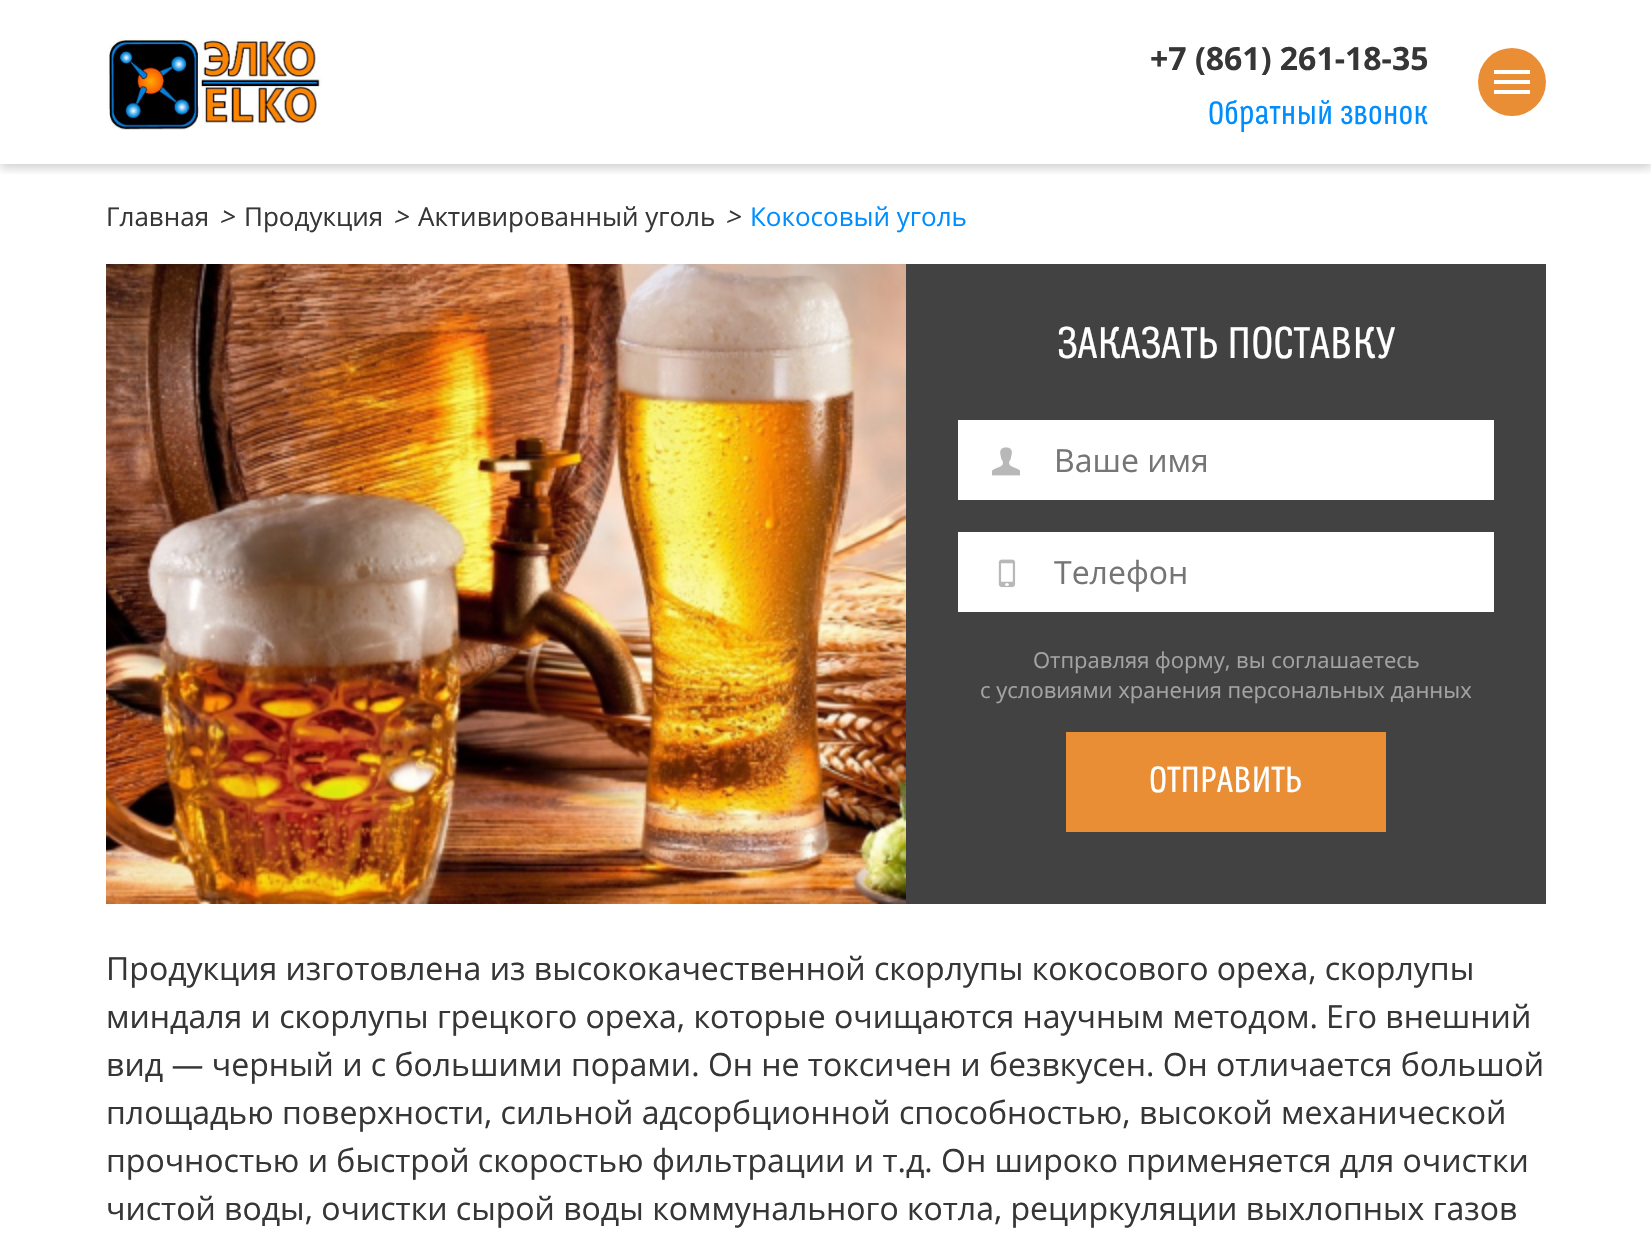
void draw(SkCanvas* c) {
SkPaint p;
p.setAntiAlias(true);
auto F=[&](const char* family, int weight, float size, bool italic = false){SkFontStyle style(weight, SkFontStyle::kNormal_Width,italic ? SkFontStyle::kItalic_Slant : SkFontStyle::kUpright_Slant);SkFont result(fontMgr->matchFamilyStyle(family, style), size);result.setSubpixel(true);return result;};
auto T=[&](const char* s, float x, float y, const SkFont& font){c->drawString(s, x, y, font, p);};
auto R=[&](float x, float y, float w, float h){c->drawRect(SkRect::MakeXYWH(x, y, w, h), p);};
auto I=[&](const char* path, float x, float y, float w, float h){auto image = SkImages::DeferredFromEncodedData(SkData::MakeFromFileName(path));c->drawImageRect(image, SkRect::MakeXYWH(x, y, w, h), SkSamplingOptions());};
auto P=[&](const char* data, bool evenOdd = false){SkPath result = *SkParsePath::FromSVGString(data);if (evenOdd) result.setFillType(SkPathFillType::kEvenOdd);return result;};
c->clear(0xffffffff);
c->save();
c->clipRect(SkRect::MakeXYWH(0,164,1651,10));
p.setColor(0x330f0f0f);
p.setMaskFilter(SkMaskFilter::MakeBlur(kNormal_SkBlurStyle, 5));
c->drawRect(SkRect::MakeXYWH(0,4,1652,164),p);
p.setMaskFilter(nullptr);
c->restore();
I("1.png",106,38,216,92);
auto f1 = F("Open Sans",700,32);
p.setColor(0xff363636);
T("+7 (861) 261-18-35",1150,70,f1);
auto f2 = F("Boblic",400,32);
p.setColor(0xff008eff);
T("Обратный звонок",1208,124,f2);
p.setColor(0xffea8e36);
c->drawCircle(1512,82,34,p);
p.setColor(0xffffffff);
c->drawPath(P("M1494 94h36v-4h-36zm0-10h36v-4h-36zm0-14v4h36v-4z"),p);
auto f3 = F("Open Sans",400,26);
p.setColor(0xff363636);
T("Главная",106,226,f3);
auto f4 = F("Open Sans",400,26,true);
T(">",219,226,f4);
T("Продукция",244,226,f3);
T(">",393,226,f4);
T("Активированный уголь",418,226,f3);
T(">",725,226,f4);
p.setColor(0xff008eff);
T("Кокосовый уголь",750,226,f3);
I("2.png",106,264,800,640);
p.setColor(0xff424242);
R(906,264,640,640);
auto f5 = F("Boblic",400,44);
p.setColor(0xffffffff);
T("ЗАКАЗАТЬ ПОСТАВКУ",1057,358,f5);
R(958,420,536,80);
I("3.png",992,447,28,29);
auto f6 = F("Open Sans",400,32);
p.setColor(0xff757575);
T("Ваше имя",1054,472,f6);
p.setColor(0xffffffff);
R(958,532,536,80);
I("4.png",998,559,18,29);
p.setColor(0xff757575);
T("Телефон",1054,584,f6);
auto f7 = F("Open Sans",400,22);
p.setColor(0xffa3a3a3);
T("Отправляя форму, вы соглашаетесь",1033,668,f7);
T("с условиями хранения персональных данных",980,698,f7);
p.setColor(0xffea8e36);
R(1066,732,320,100);
auto f8 = F("Boblic",400,36);
p.setColor(0xffffffff);
T("ОТПРАВИТЬ",1149,792,f8);
p.setColor(0xff363636);
T("Продукция изготовлена из высококачественной скорлупы кокосового ореха, скорлупы",106,980,f6);
T("миндаля и скорлупы грецкого ореха, которые очищаются научным методом. Его внешний",106,1028,f6);
T("вид — черный и с большими порами. Он не токсичен и безвкусен. Он отличается большой",106,1076,f6);
T("площадью поверхности, сильной адсорбционной способностью, высокой механической",106,1124,f6);
T("прочностью и быстрой скоростью фильтрации и т.д. Он широко применяется для очистки",106,1172,f6);
T("чистой воды, очистки сырой воды коммунального котла, рециркуляции выхлопных газов",106,1220,f6);
}
